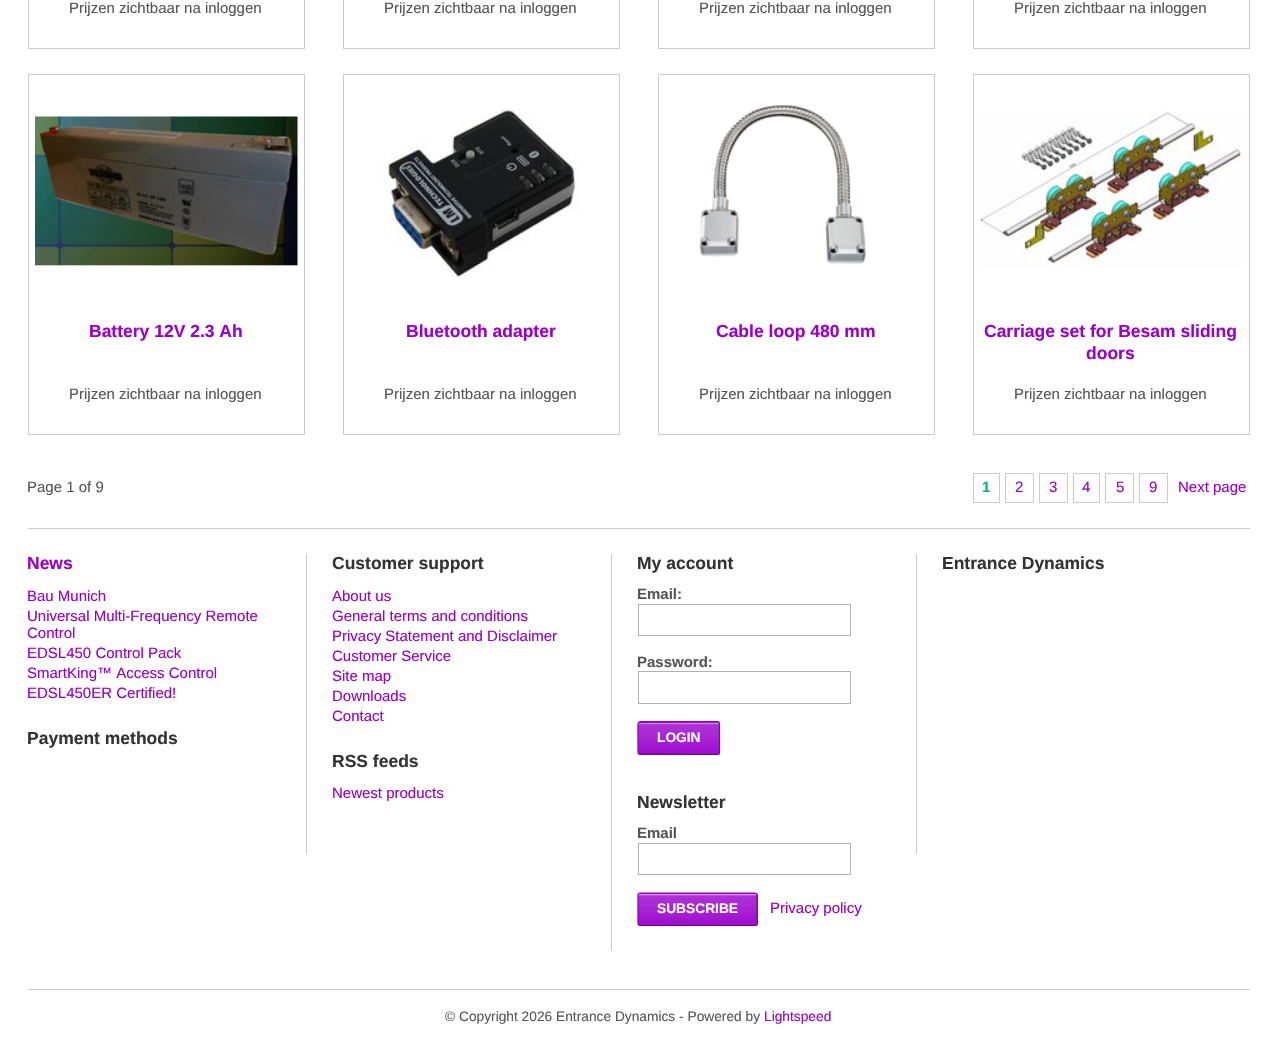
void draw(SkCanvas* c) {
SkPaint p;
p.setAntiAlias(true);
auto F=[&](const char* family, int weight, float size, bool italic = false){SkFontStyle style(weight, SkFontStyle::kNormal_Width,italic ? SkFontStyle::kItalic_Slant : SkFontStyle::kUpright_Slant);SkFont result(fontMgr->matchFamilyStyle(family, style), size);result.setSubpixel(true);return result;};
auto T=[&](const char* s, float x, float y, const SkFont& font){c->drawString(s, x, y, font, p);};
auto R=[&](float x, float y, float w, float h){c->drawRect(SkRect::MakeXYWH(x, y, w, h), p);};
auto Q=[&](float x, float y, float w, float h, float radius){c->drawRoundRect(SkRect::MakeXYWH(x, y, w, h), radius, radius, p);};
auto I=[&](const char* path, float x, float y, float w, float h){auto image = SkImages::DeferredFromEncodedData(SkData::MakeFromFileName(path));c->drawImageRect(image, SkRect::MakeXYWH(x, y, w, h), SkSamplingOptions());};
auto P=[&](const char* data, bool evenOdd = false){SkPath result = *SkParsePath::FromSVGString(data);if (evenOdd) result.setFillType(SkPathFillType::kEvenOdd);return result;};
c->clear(0xffffffff);
p.setStroke(true);
p.setStrokeWidth(1);
p.setColor(0xffcccccc);
c->drawRect(SkRect::MakeXYWH(28.5,-.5,276,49),p);
auto f1 = F("Liberation Sans",400,15);
p.setStroke(false);
p.setColor(0xff555555);
T("Prijzen zichtbaar na inloggen",69,13,f1);
p.setStroke(true);
p.setColor(0xffcccccc);
c->drawRect(SkRect::MakeXYWH(343.5,-.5,276,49),p);
p.setStroke(false);
p.setColor(0xff555555);
T("Prijzen zichtbaar na inloggen",384,13,f1);
p.setStroke(true);
p.setColor(0xffcccccc);
c->drawRect(SkRect::MakeXYWH(658.5,-.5,276,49),p);
p.setStroke(false);
p.setColor(0xff555555);
T("Prijzen zichtbaar na inloggen",699,13,f1);
p.setStroke(true);
p.setColor(0xffcccccc);
c->drawRect(SkRect::MakeXYWH(973.5,-.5,276,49),p);
p.setStroke(false);
p.setColor(0xff555555);
T("Prijzen zichtbaar na inloggen",1014,13,f1);
p.setStroke(true);
p.setColor(0xffcccccc);
c->drawRect(SkRect::MakeXYWH(28.5,74.5,276,360),p);
I("1.png",35,112,263,160);
auto f2 = F("Liberation Sans",700,17.5);
p.setStroke(false);
p.setColor(0xff9900cc);
T("Battery 12V 2.3 Ah",89,337,f2);
p.setColor(0xff555555);
T("Prijzen zichtbaar na inloggen",69,399,f1);
p.setStroke(true);
p.setColor(0xffcccccc);
c->drawRect(SkRect::MakeXYWH(343.5,74.5,276,360),p);
I("2.png",380,108,200,171);
p.setStroke(false);
p.setColor(0xff9900cc);
T("Bluetooth adapter",406,337,f2);
p.setColor(0xff555555);
T("Prijzen zichtbaar na inloggen",384,399,f1);
p.setStroke(true);
p.setColor(0xffcccccc);
c->drawRect(SkRect::MakeXYWH(658.5,74.5,276,360),p);
I("3.png",699,105,168,159);
p.setStroke(false);
p.setColor(0xff9900cc);
T("Cable loop 480 mm",716,337,f2);
p.setColor(0xff555555);
T("Prijzen zichtbaar na inloggen",699,399,f1);
p.setStroke(true);
p.setColor(0xffcccccc);
c->drawRect(SkRect::MakeXYWH(973.5,74.5,276,360),p);
I("4.png",980,111,262,159);
p.setStroke(false);
p.setColor(0xff9900cc);
T("Carriage set for Besam sliding",984,337,f2);
T("doors",1086,359,f2);
p.setColor(0xff555555);
T("Prijzen zichtbaar na inloggen",1014,399,f1);
T("Page 1 of 9",27,492,f1);
p.setStroke(true);
p.setColor(0xffcccccc);
c->drawRect(SkRect::MakeXYWH(973.5,473.5,26,29),p);
auto f3 = F("Liberation Sans",700,15);
p.setStroke(false);
p.setColor(0xff00bf5f);
T("1",982,492,f3);
p.setStroke(true);
p.setColor(0xffcccccc);
c->drawRect(SkRect::MakeXYWH(1005.5,473.5,28,29),p);
p.setStroke(false);
p.setColor(0xff9900cc);
T("2",1015,492,f1);
p.setStroke(true);
p.setColor(0xffcccccc);
c->drawRect(SkRect::MakeXYWH(1039.5,473.5,28,29),p);
p.setStroke(false);
p.setColor(0xff9900cc);
T("3",1049,492,f1);
p.setStroke(true);
p.setColor(0xffcccccc);
c->drawRect(SkRect::MakeXYWH(1073.5,473.5,26,29),p);
p.setStroke(false);
p.setColor(0xff9900cc);
T("4",1082,492,f1);
p.setStroke(true);
p.setColor(0xffcccccc);
c->drawRect(SkRect::MakeXYWH(1105.5,473.5,28,29),p);
p.setStroke(false);
p.setColor(0xff9900cc);
T("5",1116,492,f1);
p.setStroke(true);
p.setColor(0xffcccccc);
c->drawRect(SkRect::MakeXYWH(1139.5,473.5,28,29),p);
p.setStroke(false);
p.setColor(0xff9900cc);
T("9",1149,492,f1);
T("Next page",1178,492,f1);
p.setColor(0xffcccccc);
R(28,528,1222,1);
p.setColor(0xff9900cc);
T("News",27,569,f2);
T("Bau Munich",27,601,f1);
T("Universal Multi-Frequency Remote",27,621,f1);
T("Control",27,638,f1);
T("EDSL450 Control Pack",27,658,f1);
T("SmartKing™ Access Control",27,678,f1);
T("EDSL450ER Certified!",27,698,f1);
p.setColor(0xff333333);
T("Payment methods",27,744,f2);
p.setColor(0xffcccccc);
R(306,554,1,300);
p.setColor(0xff333333);
T("Customer support",332,569,f2);
p.setColor(0xff9900cc);
T("About us",332,601,f1);
T("General terms and conditions",332,621,f1);
T("Privacy Statement and Disclaimer",332,641,f1);
T("Customer Service",332,661,f1);
T("Site map",332,681,f1);
T("Downloads",332,701,f1);
T("Contact",332,721,f1);
p.setColor(0xff333333);
T("RSS feeds",332,767,f2);
p.setColor(0xff9900cc);
T("Newest products",332,798,f1);
p.setColor(0xffcccccc);
R(611,554,1,397);
p.setColor(0xff333333);
T("My account",637,569,f2);
p.setColor(0xff555555);
T("Email:",637,599,f3);
p.setStroke(true);
p.setColor(0xffb2b2b2);
c->drawRect(SkRect::MakeXYWH(638.5,604.5,212,31),p);
p.setStroke(false);
p.setColor(0xff555555);
T("Password:",637,667,f3);
p.setStroke(true);
p.setColor(0xffb2b2b2);
c->drawRect(SkRect::MakeXYWH(638.5,671.5,212,32),p);
p.setStroke(false);
p.setColor(0xff9900cc);
Q(638,721,82,34,2.5);
I("5.png",638,722,82,33);
p.setStroke(true);
p.setStrokeWidth(1.2);
c->drawPath(P("M638.5 722.5l66-.5h13l1.5 .5"),p);
p.setColor(0xff8200ad);
c->drawPath(P("M719 722.5l.5 1v29l-.5 1.5"),p);
p.setColor(0xff6b008e);
c->drawPath(P("M719 754l-1.5 .5l-79-.5"),p);
p.setColor(0xff8200ad);
c->drawPath(P("M638.5 754l-.5-1.5v-29l.5-1"),p);
auto f4 = F("Liberation Sans",700,13.75);
p.setStroke(false);
p.setColor(0xffffffff);
T("LOGIN",657,742,f4);
p.setColor(0xff333333);
T("Newsletter",637,808,f2);
p.setColor(0xff555555);
T("Email",637,838,f3);
p.setStroke(true);
p.setStrokeWidth(1);
p.setColor(0xffb2b2b2);
c->drawRect(SkRect::MakeXYWH(638.5,843.5,212,31),p);
p.setStroke(false);
p.setColor(0xff9900cc);
Q(638,893,120,33,2.5);
I("6.png",638,894,120,32);
p.setStroke(true);
p.setStrokeWidth(1.2);
c->drawPath(P("M638.5 893.5l1.5-.5h115l1.5 .5"),p);
p.setColor(0xff8200ad);
c->drawPath(P("M756.5 893.5l.5 1.5v29l-.5 1"),p);
p.setColor(0xff6b008e);
c->drawPath(P("M756.5 925l-1.5 .5h-115l-1.5-.5"),p);
p.setColor(0xff8200ad);
c->drawPath(P("M638.5 925l-.5-1v-29l.5-1.5"),p);
p.setStroke(false);
p.setColor(0xffffffff);
T("SUBSCRIBE",657,913,f4);
p.setColor(0xff9900cc);
T("Privacy policy",770,913,f1);
p.setColor(0xffcccccc);
R(916,554,1,300);
p.setColor(0xff333333);
T("Entrance Dynamics",942,569,f2);
p.setColor(0xffcccccc);
R(28,989,1222,1);
auto f5 = F("Liberation Sans",400,13.75);
p.setColor(0xff555555);
T("© Copyright 2026 Entrance Dynamics - Powered by",445,1021,f5);
p.setColor(0xff9900cc);
T("Lightspeed",764,1021,f5);
}
